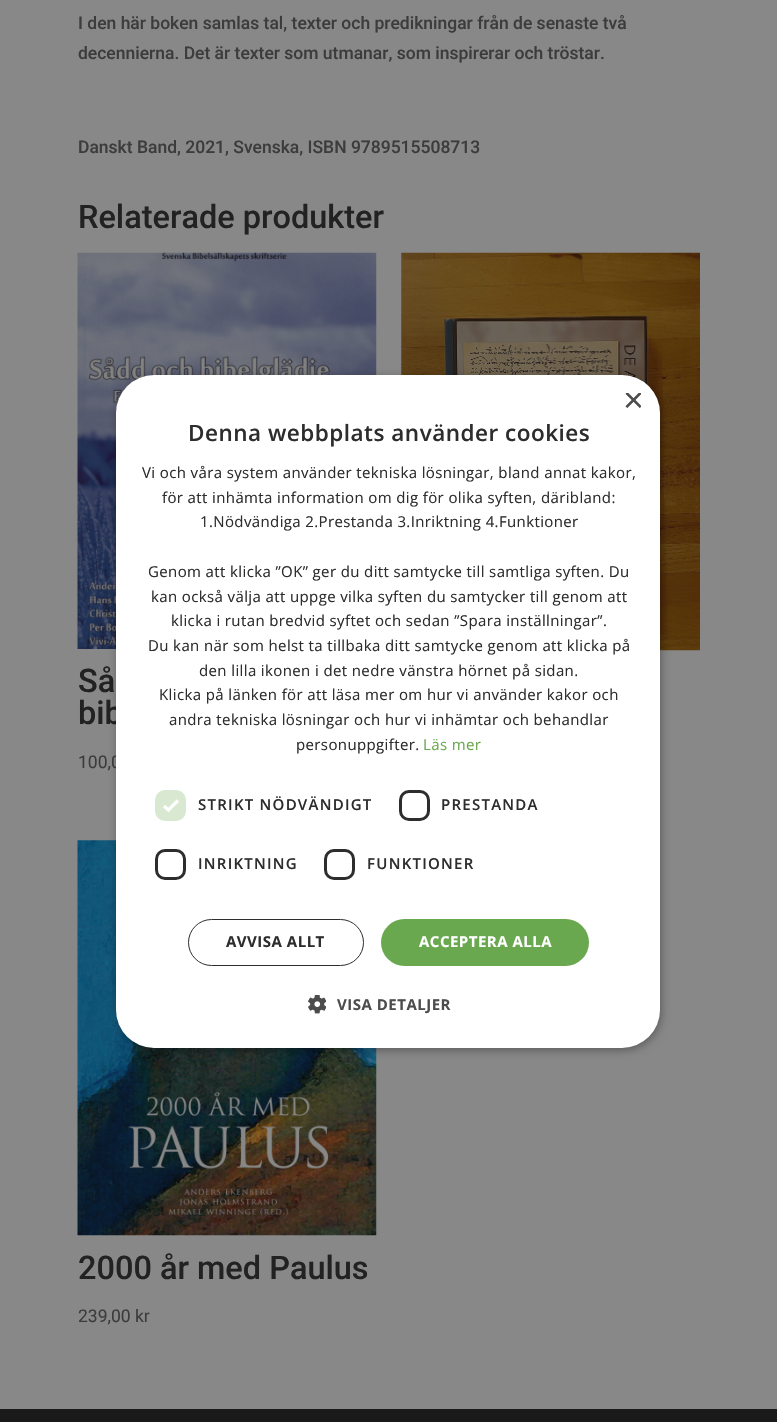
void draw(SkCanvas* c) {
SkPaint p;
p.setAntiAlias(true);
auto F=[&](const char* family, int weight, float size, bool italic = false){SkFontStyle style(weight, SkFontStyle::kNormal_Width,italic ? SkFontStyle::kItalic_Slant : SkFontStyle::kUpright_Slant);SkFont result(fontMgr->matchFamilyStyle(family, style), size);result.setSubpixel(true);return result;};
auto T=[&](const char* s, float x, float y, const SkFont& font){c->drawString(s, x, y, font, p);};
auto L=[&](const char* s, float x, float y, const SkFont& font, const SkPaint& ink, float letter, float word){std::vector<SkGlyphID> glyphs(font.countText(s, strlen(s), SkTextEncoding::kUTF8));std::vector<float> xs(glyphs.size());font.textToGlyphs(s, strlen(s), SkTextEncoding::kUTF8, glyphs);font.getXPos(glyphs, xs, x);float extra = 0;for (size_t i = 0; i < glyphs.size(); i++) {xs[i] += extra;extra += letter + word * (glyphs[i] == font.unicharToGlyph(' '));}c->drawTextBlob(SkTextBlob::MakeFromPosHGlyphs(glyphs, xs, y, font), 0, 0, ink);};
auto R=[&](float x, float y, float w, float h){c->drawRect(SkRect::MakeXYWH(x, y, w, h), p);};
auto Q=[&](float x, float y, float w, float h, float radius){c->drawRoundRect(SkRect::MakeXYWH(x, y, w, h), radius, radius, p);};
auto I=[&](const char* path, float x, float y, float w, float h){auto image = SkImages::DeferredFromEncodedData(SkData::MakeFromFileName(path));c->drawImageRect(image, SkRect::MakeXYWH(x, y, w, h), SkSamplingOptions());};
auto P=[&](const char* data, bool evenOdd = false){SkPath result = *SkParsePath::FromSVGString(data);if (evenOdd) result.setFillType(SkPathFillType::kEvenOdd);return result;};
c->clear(0xff888888);
auto f1 = F("Roboto",500,17.5);
p.setColor(0xff3c3c3c);
T("I den här boken samlas tal, texter och predikningar från de senaste två",78,29,f1);
T("decennierna. Det är texter som utmanar, som inspirerar och tröstar.",78,59,f1);
T("Danskt Band, 2021, Svenska, ISBN 9789515508713",78,153,f1);
auto f2 = F("Roboto",500,32.5);
p.setColor(0xff222222);
T("Relaterade produkter",78,228,f2);
I("1.png",401,252,299,399);
I("2.png",77,252,300,397);
T("Så",78,692,f2);
T("bib",78,724,f2);
auto f3 = F("Roboto",400,17.5);
p.setColor(0xff3c3c3c);
T("100,0",78,768,f3);
I("3.png",77,840,300,396);
p.setColor(0xff222222);
T("2000 år med Paulus",78,1279,f2);
p.setColor(0xff3c3c3c);
T("239,00 kr",78,1322,f3);
p.setColor(0xff1a1a1a);
R(0,1409,777,13);
p.setColor(0x59000000);
p.setMaskFilter(SkMaskFilter::MakeBlur(kNormal_SkBlurStyle, 5));
c->drawRoundRect(SkRect::MakeXYWH(118,378,543,672),38,38,p);
p.setMaskFilter(nullptr);
p.setColor(0xffffffff);
Q(116,375,544,673,38);
c->save();
c->clipRect(SkRect::MakeXYWH(623,393,18,18));
auto f4 = F("Liberation Sans",400,36);
p.setColor(0xff4d4d4d);
T("×",623,412,f4);
c->restore();
auto f5 = F("Open Sans",600,22.5);
p.setColor(0xff2d2d2d);
L("Denna webbplats använder cookies",188,441,f5,p,.5,0);
auto f6 = F("Open Sans",400,15);
L("Vi och våra system använder tekniska lösningar, bland annat kakor,",142,478,f6,p,.38,0);
L("för att inhämta information om dig för olika syften, däribland:",162,503,f6,p,.38,0);
L("1.Nödvändiga 2.Prestanda 3.Inriktning 4.Funktioner",200,527,f6,p,.38,0);
L("Genom att klicka ”OK” ger du ditt samtycke till samtliga syften. Du",148,577,f6,p,.38,0);
L("kan också välja att uppge vilka syften du samtycker till genom att",151,602,f6,p,.38,0);
L("klicka i rutan bredvid syftet och sedan ”Spara inställningar”.",171,626,f6,p,.38,0);
L("Du kan när som helst ta tillbaka ditt samtycke genom att klicka på",148,651,f6,p,.38,0);
L("den lilla ikonen i det nedre vänstra hörnet på sidan.",199,676,f6,p,.38,0);
L("Klicka på länken för att läsa mer om hur vi använder kakor och",159,700,f6,p,.38,0);
L("andra tekniska lösningar och hur vi inhämtar och behandlar",169,725,f6,p,.38,0);
L("personuppgifter.",296,750,f6,p,.38,0);
p.setColor(0xff6aa84f);
L("Läs mer",423,750,f6,p,.38,0);
p.setColor(0xffd8e8d1);
Q(155,790,31,31,10);
p.setStroke(true);
p.setStrokeWidth(3.3);
p.setColor(0xffffffff);
c->drawPath(P("M164 806l4.5 4l9.5-9.5"),p);
auto f7 = F("Open Sans",600,15);
p.setStroke(false);
p.setColor(0xff2d2d2d);
L("STRIKT NÖDVÄNDIGT",198,810,f7,p,1.25,0);
p.setStroke(true);
p.setStrokeWidth(3);
c->drawRoundRect(SkRect::MakeXYWH(400.5,791.5,28,28),8.5,8.5,p);
p.setStroke(false);
L("PRESTANDA",441,810,f7,p,1.25,0);
p.setStroke(true);
c->drawRoundRect(SkRect::MakeXYWH(156.5,850.5,28,28),8.5,8.5,p);
p.setStroke(false);
L("INRIKTNING",198,869,f7,p,1.25,0);
p.setStroke(true);
c->drawRoundRect(SkRect::MakeXYWH(325.5,850.5,28,28),8.5,8.5,p);
p.setStroke(false);
L("FUNKTIONER",367,869,f7,p,1.25,0);
p.setStroke(true);
p.setStrokeWidth(1);
c->drawRoundRect(SkRect::MakeXYWH(188.5,919.5,175,46),23,23,p);
auto f8 = F("Open Sans",700,15);
p.setStroke(false);
L("AVVISA ALLT",226,947,f8,p,.5,0);
p.setColor(0xff6aa84f);
Q(381,919,208,47,23.5);
p.setColor(0xffffffff);
L("ACCEPTERA ALLA",419,947,f8,p,.5,0);
I("4.png",308,995,18,19);
p.setColor(0xff4d4d4d);
L("VISA DETALJER",337,1010,f8,p,.5,0);
}
